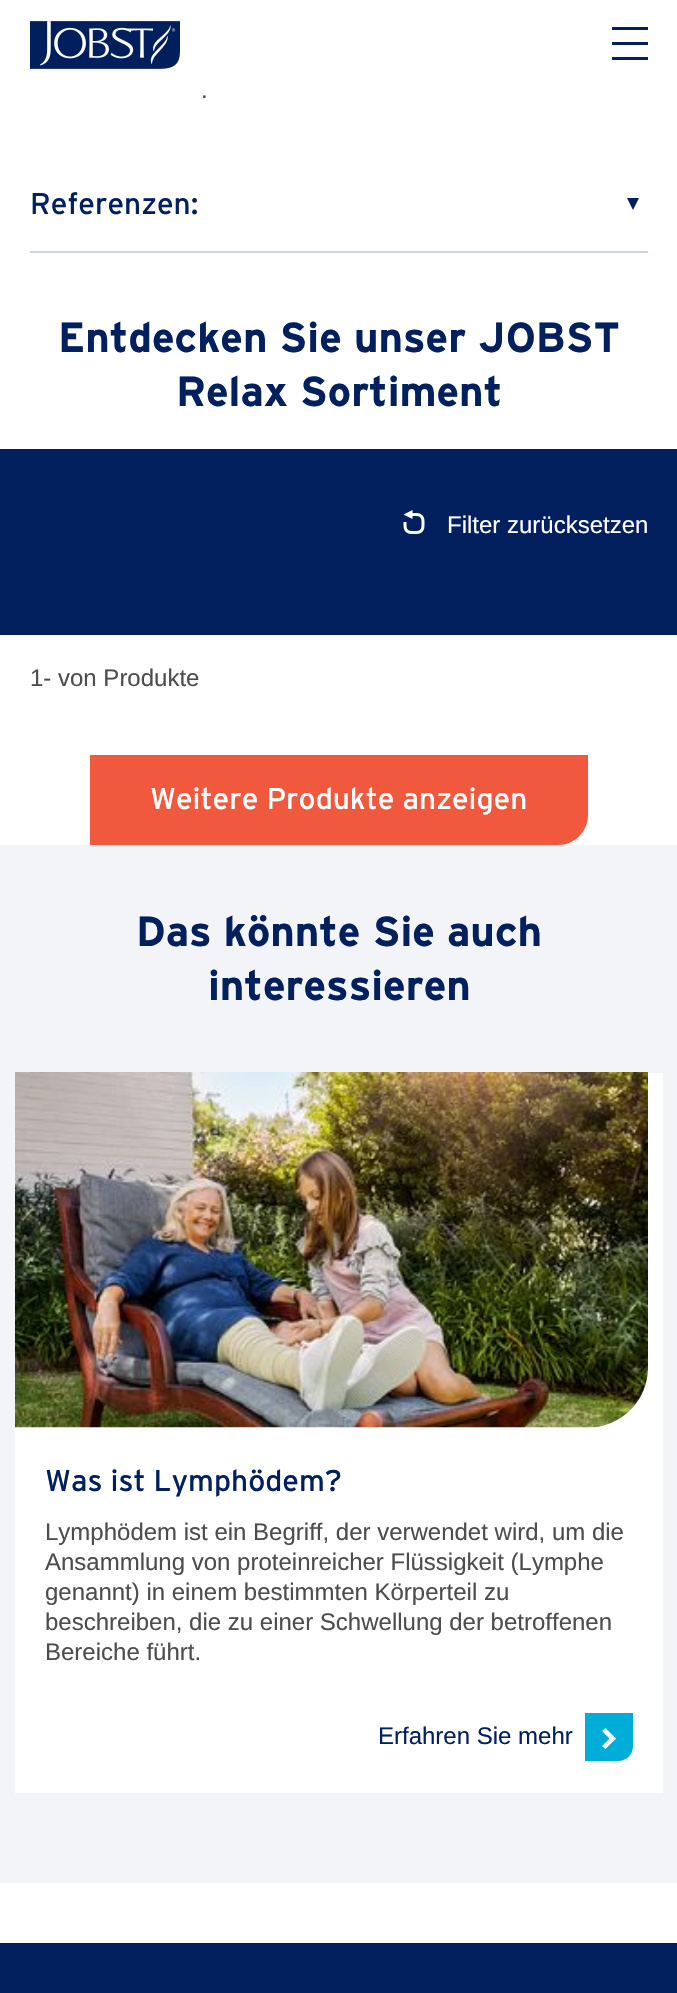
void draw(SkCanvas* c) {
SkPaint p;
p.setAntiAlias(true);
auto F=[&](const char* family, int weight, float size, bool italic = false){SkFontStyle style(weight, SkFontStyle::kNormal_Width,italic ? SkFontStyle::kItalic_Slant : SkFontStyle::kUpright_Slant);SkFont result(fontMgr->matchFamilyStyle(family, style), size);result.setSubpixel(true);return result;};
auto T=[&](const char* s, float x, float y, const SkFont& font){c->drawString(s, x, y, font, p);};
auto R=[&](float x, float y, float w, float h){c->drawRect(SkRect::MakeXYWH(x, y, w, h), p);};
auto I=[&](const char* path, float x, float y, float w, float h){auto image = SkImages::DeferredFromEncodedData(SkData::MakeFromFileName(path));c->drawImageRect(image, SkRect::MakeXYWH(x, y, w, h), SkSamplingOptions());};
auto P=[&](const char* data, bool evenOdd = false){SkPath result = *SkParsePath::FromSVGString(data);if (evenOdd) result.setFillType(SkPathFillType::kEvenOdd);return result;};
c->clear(0xffffffff);
I("1.png",30,21,150,48);
p.setColor(0xff01205d);
R(612,27,36,3);
R(612,42,36,3);
R(612,57,36,3);
auto f1 = F("Liberation Sans",400,24);
p.setColor(0xff4d4d4d);
T(".",201,98,f1);
auto f2 = F("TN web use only",400,30);
p.setColor(0xff01205d);
T("Referenzen:",30,214,f2);
c->drawPath(P("M627 198h12l-6 12z"),p);
p.setColor(0xffccd2df);
R(30,251,618,2);
auto f3 = F("TN web use only",700,42);
p.setColor(0xff01205d);
T("Entdecken Sie unser JOBST",58,352,f3);
T("Relax Sortiment",176,406,f3);
R(0,449,677,186);
I("2.png",403,510,22,24);
p.setColor(0xffffffff);
T("Filter zurücksetzen",447,533,f1);
p.setColor(0xff4d4d4d);
T("1- von Produkte",30,686,f1);
p.setColor(0xfff0593d);
c->drawPath(P("M90 755h498v60c0 16.5-13.5 30-30 30h-468z"),p);
p.setColor(0xffffffff);
T("Weitere Produkte anzeigen",150,809,f2);
p.setColor(0xfff3f4f7);
R(0,845,677,1038);
p.setColor(0xff01205d);
T("Das könnte Sie auch",136,946,f3);
T("interessieren",208,1000,f3);
p.setColor(0xffffffff);
R(15,1073,648,720);
I("3.png",15,1072,633,356);
p.setColor(0xff01205d);
T("Was ist Lymphödem?",45,1491,f2);
p.setColor(0xff4d4d4d);
T("Lymphödem ist ein Begriff, der verwendet wird, um die",45,1540,f1);
T("Ansammlung von proteinreicher Flüssigkeit (Lymphe",45,1570,f1);
T("genannt) in einem bestimmten Körperteil zu",45,1600,f1);
T("beschreiben, die zu einer Schwellung der betroffenen",45,1630,f1);
T("Bereiche führt.",45,1660,f1);
p.setColor(0xff01205d);
T("Erfahren Sie mehr",378,1744,f1);
p.setColor(0xff00add9);
c->drawPath(P("M585 1713h48v33c0 8.5-6.5 15-15 15h-33z"),p);
p.setColor(0xffffffff);
c->drawPath(P("M602 1731l3.5-3l10.5 10.5l-10.5 10.5l-3.5-3l7.5-7.5z"),p);
p.setColor(0xff01205d);
R(0,1943,677,50);
}
